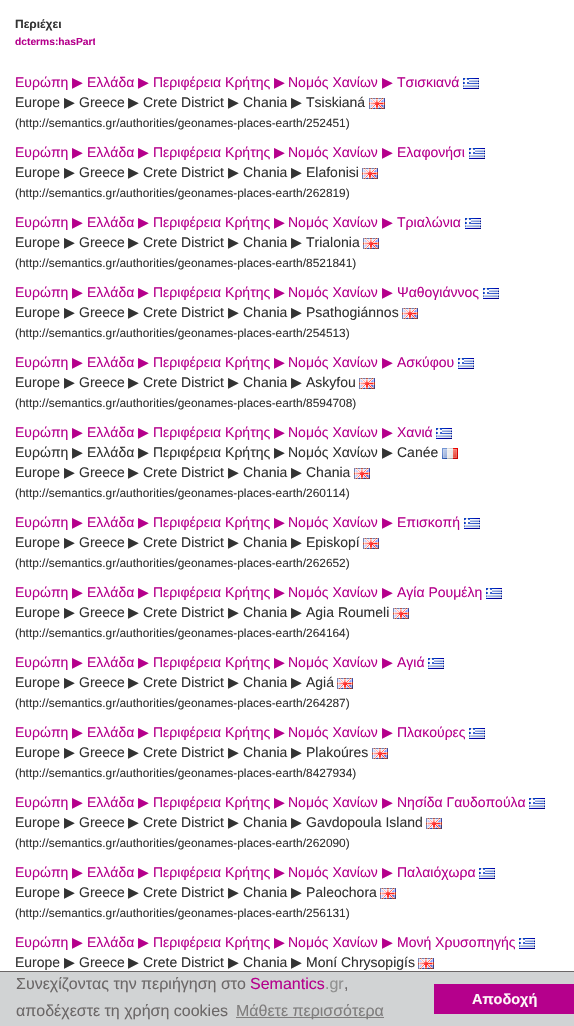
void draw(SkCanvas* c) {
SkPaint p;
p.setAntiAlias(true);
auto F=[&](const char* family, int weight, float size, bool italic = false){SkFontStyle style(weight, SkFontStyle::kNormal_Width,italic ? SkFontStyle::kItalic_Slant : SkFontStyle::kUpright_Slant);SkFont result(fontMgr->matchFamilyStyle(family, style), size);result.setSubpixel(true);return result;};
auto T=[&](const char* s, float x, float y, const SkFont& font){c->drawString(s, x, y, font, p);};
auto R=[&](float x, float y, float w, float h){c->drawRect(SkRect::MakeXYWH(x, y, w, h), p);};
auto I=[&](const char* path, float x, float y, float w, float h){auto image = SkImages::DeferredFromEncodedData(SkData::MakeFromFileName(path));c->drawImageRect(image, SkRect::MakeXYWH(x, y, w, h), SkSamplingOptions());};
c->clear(0xffffffff);
auto f1 = F("Liberation Sans",700,12);
p.setColor(0xff333333);
T("Περιέχει",15,28,f1);
c->save();
c->clipRect(SkRect::MakeXYWH(15,33,80,17));
auto f2 = F("Liberation Sans",700,10.25);
p.setColor(0xffb5008c);
T("dcterms:hasPart",15,45,f2);
c->restore();
auto f3 = F("Liberation Sans",400,14);
T("Ευρώπη",15,87,f3);
auto f4 = F("DejaVu Sans",400,14);
T("▶",72,87,f4);
T("Ελλάδα",87,87,f3);
T("▶",138,87,f4);
T("Περιφέρεια Κρήτης",153,87,f3);
T("▶",274,87,f4);
T("Νομός Χανίων",288,87,f3);
T("▶",382,87,f4);
T("Τσισκιανά",397,87,f3);
I("1.png",463,78,16,11);
p.setColor(0xff333333);
T("Europe",15,107,f3);
T("▶",64,107,f4);
T("Greece",79,107,f3);
T("▶",128,107,f4);
T("Crete District",143,107,f3);
T("▶",228,107,f4);
T("Chania",243,107,f3);
T("▶",291,107,f4);
T("Tsiskianá",306,107,f3);
I("2.png",369,98,16,11);
auto f5 = F("Liberation Sans",400,11.9);
T("(http://semantics.gr/authorities/geonames-places-earth/252451)",15,127,f5);
p.setColor(0xffb5008c);
T("Ευρώπη",15,157,f3);
T("▶",72,157,f4);
T("Ελλάδα",87,157,f3);
T("▶",138,157,f4);
T("Περιφέρεια Κρήτης",153,157,f3);
T("▶",274,157,f4);
T("Νομός Χανίων",288,157,f3);
T("▶",382,157,f4);
T("Ελαφονήσι",397,157,f3);
I("1.png",469,148,16,11);
p.setColor(0xff333333);
T("Europe",15,177,f3);
T("▶",64,177,f4);
T("Greece",79,177,f3);
T("▶",128,177,f4);
T("Crete District",143,177,f3);
T("▶",228,177,f4);
T("Chania",243,177,f3);
T("▶",291,177,f4);
T("Elafonisi",306,177,f3);
I("2.png",362,168,16,11);
T("(http://semantics.gr/authorities/geonames-places-earth/262819)",15,197,f5);
p.setColor(0xffb5008c);
T("Ευρώπη",15,227,f3);
T("▶",72,227,f4);
T("Ελλάδα",87,227,f3);
T("▶",138,227,f4);
T("Περιφέρεια Κρήτης",153,227,f3);
T("▶",274,227,f4);
T("Νομός Χανίων",288,227,f3);
T("▶",382,227,f4);
T("Τριαλώνια",397,227,f3);
I("1.png",465,218,16,11);
p.setColor(0xff333333);
T("Europe",15,247,f3);
T("▶",64,247,f4);
T("Greece",79,247,f3);
T("▶",128,247,f4);
T("Crete District",143,247,f3);
T("▶",228,247,f4);
T("Chania",243,247,f3);
T("▶",291,247,f4);
T("Trialonia",306,247,f3);
I("2.png",363,238,16,11);
T("(http://semantics.gr/authorities/geonames-places-earth/8521841)",15,267,f5);
p.setColor(0xffb5008c);
T("Ευρώπη",15,297,f3);
T("▶",72,297,f4);
T("Ελλάδα",87,297,f3);
T("▶",138,297,f4);
T("Περιφέρεια Κρήτης",153,297,f3);
T("▶",274,297,f4);
T("Νομός Χανίων",288,297,f3);
T("▶",382,297,f4);
T("Ψαθογιάννος",397,297,f3);
I("1.png",483,288,16,11);
p.setColor(0xff333333);
T("Europe",15,317,f3);
T("▶",64,317,f4);
T("Greece",79,317,f3);
T("▶",128,317,f4);
T("Crete District",143,317,f3);
T("▶",228,317,f4);
T("Chania",243,317,f3);
T("▶",291,317,f4);
T("Psathogiánnos",306,317,f3);
I("2.png",402,308,16,11);
T("(http://semantics.gr/authorities/geonames-places-earth/254513)",15,337,f5);
p.setColor(0xffb5008c);
T("Ευρώπη",15,367,f3);
T("▶",72,367,f4);
T("Ελλάδα",87,367,f3);
T("▶",138,367,f4);
T("Περιφέρεια Κρήτης",153,367,f3);
T("▶",274,367,f4);
T("Νομός Χανίων",288,367,f3);
T("▶",382,367,f4);
T("Ασκύφου",397,367,f3);
I("1.png",458,358,16,11);
p.setColor(0xff333333);
T("Europe",15,387,f3);
T("▶",64,387,f4);
T("Greece",79,387,f3);
T("▶",128,387,f4);
T("Crete District",143,387,f3);
T("▶",228,387,f4);
T("Chania",243,387,f3);
T("▶",291,387,f4);
T("Askyfou",306,387,f3);
I("2.png",359,378,16,11);
T("(http://semantics.gr/authorities/geonames-places-earth/8594708)",15,407,f5);
p.setColor(0xffb5008c);
T("Ευρώπη",15,437,f3);
T("▶",72,437,f4);
T("Ελλάδα",87,437,f3);
T("▶",138,437,f4);
T("Περιφέρεια Κρήτης",153,437,f3);
T("▶",274,437,f4);
T("Νομός Χανίων",288,437,f3);
T("▶",382,437,f4);
T("Χανιά",397,437,f3);
I("1.png",436,428,16,11);
p.setColor(0xff333333);
T("Ευρώπη",15,457,f3);
T("▶",72,457,f4);
T("Ελλάδα",87,457,f3);
T("▶",138,457,f4);
T("Περιφέρεια Κρήτης",153,457,f3);
T("▶",274,457,f4);
T("Νομός Χανίων",288,457,f3);
T("▶",382,457,f4);
T("Canée",397,457,f3);
I("3.png",442,448,16,11);
T("Europe",15,477,f3);
T("▶",64,477,f4);
T("Greece",79,477,f3);
T("▶",128,477,f4);
T("Crete District",143,477,f3);
T("▶",228,477,f4);
T("Chania",243,477,f3);
T("▶",291,477,f4);
T("Chania",306,477,f3);
I("2.png",354,468,16,11);
T("(http://semantics.gr/authorities/geonames-places-earth/260114)",15,497,f5);
p.setColor(0xffb5008c);
T("Ευρώπη",15,527,f3);
T("▶",72,527,f4);
T("Ελλάδα",87,527,f3);
T("▶",138,527,f4);
T("Περιφέρεια Κρήτης",153,527,f3);
T("▶",274,527,f4);
T("Νομός Χανίων",288,527,f3);
T("▶",382,527,f4);
T("Επισκοπή",397,527,f3);
I("1.png",464,518,16,11);
p.setColor(0xff333333);
T("Europe",15,547,f3);
T("▶",64,547,f4);
T("Greece",79,547,f3);
T("▶",128,547,f4);
T("Crete District",143,547,f3);
T("▶",228,547,f4);
T("Chania",243,547,f3);
T("▶",291,547,f4);
T("Episkopí",306,547,f3);
I("2.png",363,538,16,11);
T("(http://semantics.gr/authorities/geonames-places-earth/262652)",15,567,f5);
p.setColor(0xffb5008c);
T("Ευρώπη",15,597,f3);
T("▶",72,597,f4);
T("Ελλάδα",87,597,f3);
T("▶",138,597,f4);
T("Περιφέρεια Κρήτης",153,597,f3);
T("▶",274,597,f4);
T("Νομός Χανίων",288,597,f3);
T("▶",382,597,f4);
T("Αγία Ρουμέλη",397,597,f3);
I("1.png",486,588,16,11);
p.setColor(0xff333333);
T("Europe",15,617,f3);
T("▶",64,617,f4);
T("Greece",79,617,f3);
T("▶",128,617,f4);
T("Crete District",143,617,f3);
T("▶",228,617,f4);
T("Chania",243,617,f3);
T("▶",291,617,f4);
T("Agia Roumeli",306,617,f3);
I("2.png",393,608,16,11);
T("(http://semantics.gr/authorities/geonames-places-earth/264164)",15,637,f5);
p.setColor(0xffb5008c);
T("Ευρώπη",15,667,f3);
T("▶",72,667,f4);
T("Ελλάδα",87,667,f3);
T("▶",138,667,f4);
T("Περιφέρεια Κρήτης",153,667,f3);
T("▶",274,667,f4);
T("Νομός Χανίων",288,667,f3);
T("▶",382,667,f4);
T("Αγιά",397,667,f3);
I("1.png",428,658,16,11);
p.setColor(0xff333333);
T("Europe",15,687,f3);
T("▶",64,687,f4);
T("Greece",79,687,f3);
T("▶",128,687,f4);
T("Crete District",143,687,f3);
T("▶",228,687,f4);
T("Chania",243,687,f3);
T("▶",291,687,f4);
T("Agiá",306,687,f3);
I("2.png",337,678,16,11);
T("(http://semantics.gr/authorities/geonames-places-earth/264287)",15,707,f5);
p.setColor(0xffb5008c);
T("Ευρώπη",15,737,f3);
T("▶",72,737,f4);
T("Ελλάδα",87,737,f3);
T("▶",138,737,f4);
T("Περιφέρεια Κρήτης",153,737,f3);
T("▶",274,737,f4);
T("Νομός Χανίων",288,737,f3);
T("▶",382,737,f4);
T("Πλακούρες",397,737,f3);
I("1.png",469,728,16,11);
p.setColor(0xff333333);
T("Europe",15,757,f3);
T("▶",64,757,f4);
T("Greece",79,757,f3);
T("▶",128,757,f4);
T("Crete District",143,757,f3);
T("▶",228,757,f4);
T("Chania",243,757,f3);
T("▶",291,757,f4);
T("Plakoúres",306,757,f3);
I("2.png",372,748,16,11);
T("(http://semantics.gr/authorities/geonames-places-earth/8427934)",15,777,f5);
p.setColor(0xffb5008c);
T("Ευρώπη",15,807,f3);
T("▶",72,807,f4);
T("Ελλάδα",87,807,f3);
T("▶",138,807,f4);
T("Περιφέρεια Κρήτης",153,807,f3);
T("▶",274,807,f4);
T("Νομός Χανίων",288,807,f3);
T("▶",382,807,f4);
T("Νησίδα Γαυδοπούλα",397,807,f3);
I("1.png",529,798,16,11);
p.setColor(0xff333333);
T("Europe",15,827,f3);
T("▶",64,827,f4);
T("Greece",79,827,f3);
T("▶",128,827,f4);
T("Crete District",143,827,f3);
T("▶",228,827,f4);
T("Chania",243,827,f3);
T("▶",291,827,f4);
T("Gavdopoula Island",306,827,f3);
I("2.png",426,818,16,11);
T("(http://semantics.gr/authorities/geonames-places-earth/262090)",15,847,f5);
p.setColor(0xffb5008c);
T("Ευρώπη",15,877,f3);
T("▶",72,877,f4);
T("Ελλάδα",87,877,f3);
T("▶",138,877,f4);
T("Περιφέρεια Κρήτης",153,877,f3);
T("▶",274,877,f4);
T("Νομός Χανίων",288,877,f3);
T("▶",382,877,f4);
T("Παλαιόχωρα",397,877,f3);
I("1.png",479,868,16,11);
p.setColor(0xff333333);
T("Europe",15,897,f3);
T("▶",64,897,f4);
T("Greece",79,897,f3);
T("▶",128,897,f4);
T("Crete District",143,897,f3);
T("▶",228,897,f4);
T("Chania",243,897,f3);
T("▶",291,897,f4);
T("Paleochora",306,897,f3);
I("2.png",380,888,16,11);
T("(http://semantics.gr/authorities/geonames-places-earth/256131)",15,917,f5);
p.setColor(0xffb5008c);
T("Ευρώπη",15,947,f3);
T("▶",72,947,f4);
T("Ελλάδα",87,947,f3);
T("▶",138,947,f4);
T("Περιφέρεια Κρήτης",153,947,f3);
T("▶",274,947,f4);
T("Νομός Χανίων",288,947,f3);
T("▶",382,947,f4);
T("Μονή Χρυσοπηγής",397,947,f3);
I("1.png",519,938,16,11);
p.setColor(0xff333333);
T("Europe",15,967,f3);
T("▶",64,967,f4);
T("Greece",79,967,f3);
T("▶",128,967,f4);
T("Crete District",143,967,f3);
T("▶",228,967,f4);
T("Chania",243,967,f3);
T("▶",291,967,f4);
T("Moní Chrysopigís",306,967,f3);
I("2.png",418,958,16,11);
p.setColor(0xffd1d3d4);
R(0,972,574,54);
p.setColor(0xff6b6767);
R(0,971,574,1);
auto f6 = F("Liberation Sans",400,16);
T("Συνεχίζοντας την περιήγηση στο",16,989,f6);
p.setColor(0xffb5008c);
T("Semantics",250,989,f6);
p.setColor(0xff909090);
T(".gr",325,989,f6);
p.setColor(0xff6b6767);
T(",",344,989,f6);
T("αποδέχεστε τη χρήση cookies",16,1016,f6);
p.setColor(0xff7f7d7d);
R(236,1017,148,1);
T("Μάθετε περισσότερα",236,1016,f6);
p.setColor(0xffb5008c);
R(434,984,140,30);
auto f7 = F("Liberation Sans",700,14.5);
p.setColor(0xfffff9f9);
T("Αποδοχή",472,1004,f7);
}
